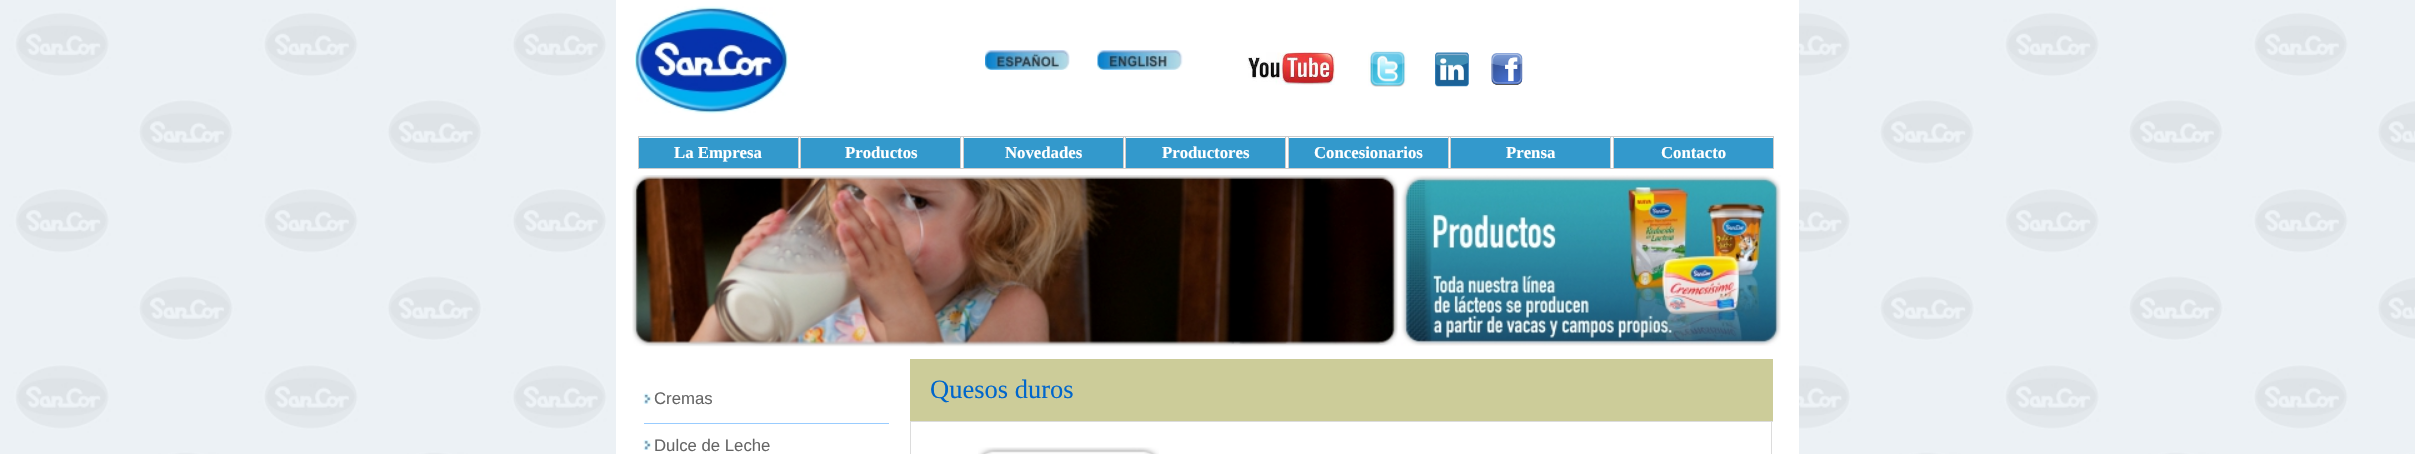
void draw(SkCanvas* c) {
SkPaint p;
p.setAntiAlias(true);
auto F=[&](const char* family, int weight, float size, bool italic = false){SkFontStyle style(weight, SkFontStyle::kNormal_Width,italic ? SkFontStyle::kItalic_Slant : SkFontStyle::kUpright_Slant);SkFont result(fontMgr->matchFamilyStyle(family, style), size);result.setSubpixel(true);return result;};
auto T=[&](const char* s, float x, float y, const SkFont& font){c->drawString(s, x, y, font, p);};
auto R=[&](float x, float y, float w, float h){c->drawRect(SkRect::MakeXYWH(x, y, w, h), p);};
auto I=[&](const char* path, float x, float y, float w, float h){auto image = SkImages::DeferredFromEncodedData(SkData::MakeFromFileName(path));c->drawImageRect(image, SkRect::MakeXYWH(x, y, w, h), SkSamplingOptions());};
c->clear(0xffffffff);
I("1.png",0,0,2415,454);
p.setColor(0xffffffff);
R(616,0,1183,359);
I("2.png",635,6,153,108);
I("3.png",985,50,85,20);
I("4.png",1097,50,86,20);
I("5.png",1247,52,88,33);
I("6.png",1368,50,39,37);
I("7.png",1435,52,34,35);
I("8.png",1491,53,32,32);
p.setColor(0xffcccccc);
R(638,136,1136,1);
R(1773,136,1,33);
R(638,168,1136,1);
R(638,136,1,33);
p.setColor(0xff3399cc);
R(639,138,159,30);
auto f1 = F("Liberation Serif",700,16.75);
p.setColor(0xffffffff);
T("La Empresa",674,158,f1);
p.setColor(0xffcccccc);
R(798,136,1,33);
p.setColor(0xff3399cc);
R(801,138,159,30);
p.setColor(0xffcccccc);
R(800,136,1,33);
p.setColor(0xffffffff);
T("Productos",845,158,f1);
p.setColor(0xffcccccc);
R(960,136,1,33);
p.setColor(0xff3399cc);
R(964,138,159,30);
p.setColor(0xffcccccc);
R(963,136,1,33);
p.setColor(0xffffffff);
T("Novedades",1005,158,f1);
p.setColor(0xffcccccc);
R(1123,136,1,33);
p.setColor(0xff3399cc);
R(1126,138,159,30);
p.setColor(0xffcccccc);
R(1125,136,1,33);
p.setColor(0xffffffff);
T("Productores",1162,158,f1);
p.setColor(0xffcccccc);
R(1285,136,1,33);
p.setColor(0xff3399cc);
R(1289,138,159,30);
p.setColor(0xffcccccc);
R(1288,136,1,33);
p.setColor(0xffffffff);
T("Concesionarios",1314,158,f1);
p.setColor(0xffcccccc);
R(1448,136,1,33);
p.setColor(0xff3399cc);
R(1451,138,159,30);
p.setColor(0xffcccccc);
R(1450,136,1,33);
p.setColor(0xffffffff);
T("Prensa",1506,158,f1);
p.setColor(0xffcccccc);
R(1610,136,1,33);
p.setColor(0xff3399cc);
R(1614,138,159,30);
p.setColor(0xffcccccc);
R(1613,136,1,33);
p.setColor(0xffffffff);
T("Contacto",1661,158,f1);
I("9.png",632,175,766,172);
I("10.png",1401,175,380,171);
R(616,359,294,95);
I("11.png",643,393,9,11);
auto f2 = F("Liberation Sans",400,16.75);
p.setColor(0xff666666);
T("Cremas",654,404,f2);
p.setColor(0xff99ccff);
R(644,423,245,1);
I("12.png",643,440,9,10);
p.setColor(0xff666666);
T("Dulce de Leche",654,451,f2);
p.setColor(0xffffffff);
R(911,359,888,95);
p.setColor(0xffcccc99);
R(910,359,863,62);
auto f3 = F("Liberation Serif",400,26.5);
p.setColor(0xff0066cc);
T("Quesos duros",930,398,f3);
p.setColor(0xffdcdcdc);
R(910,421,863,1);
R(1771,421,1,33);
R(910,421,1,33);
I("13.png",978,447,181,7);
}
